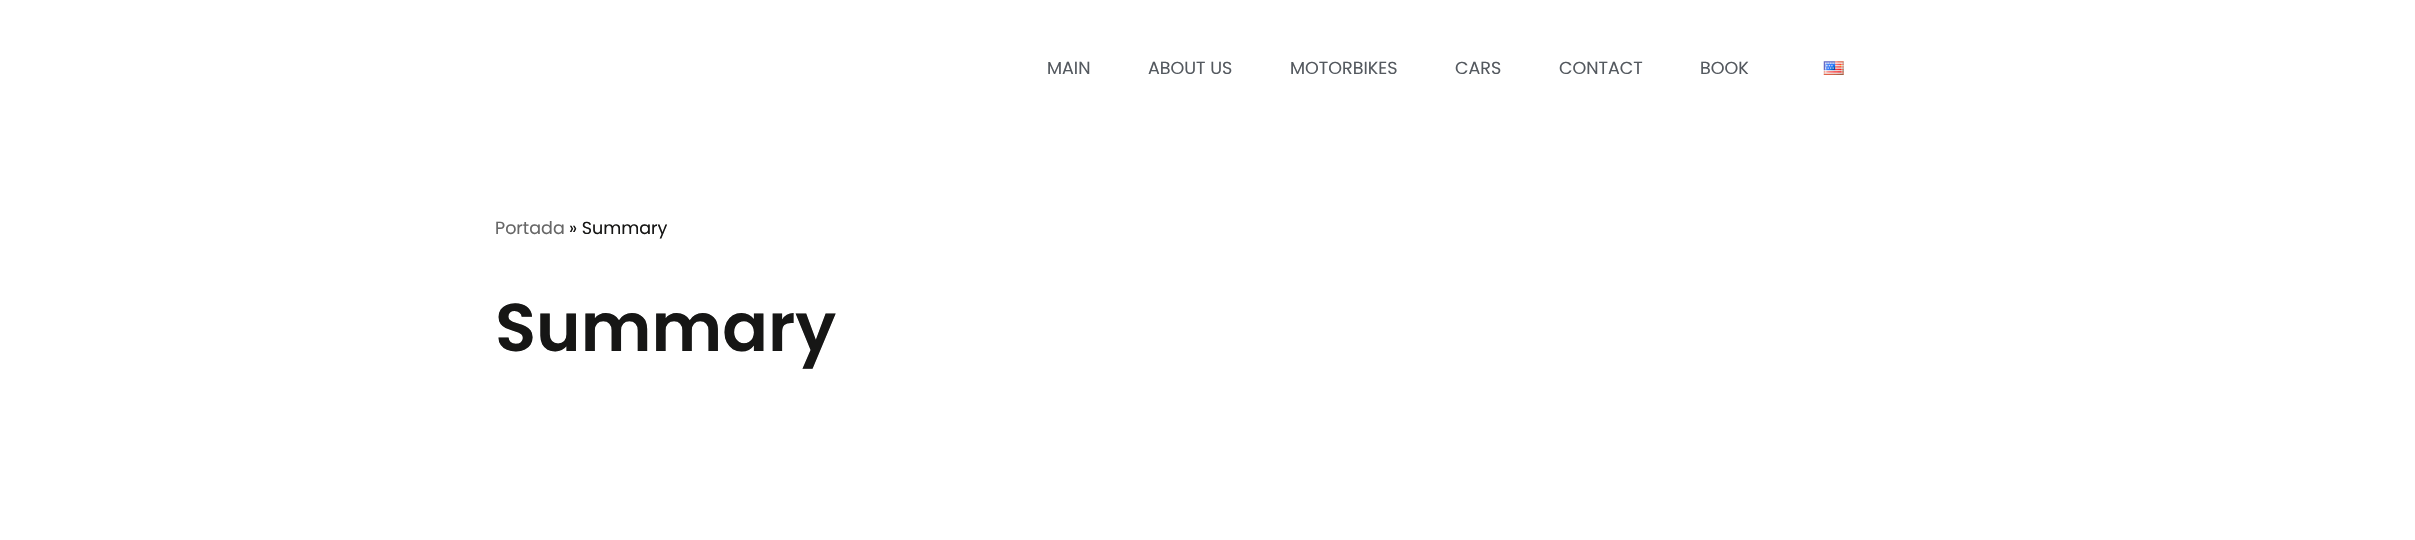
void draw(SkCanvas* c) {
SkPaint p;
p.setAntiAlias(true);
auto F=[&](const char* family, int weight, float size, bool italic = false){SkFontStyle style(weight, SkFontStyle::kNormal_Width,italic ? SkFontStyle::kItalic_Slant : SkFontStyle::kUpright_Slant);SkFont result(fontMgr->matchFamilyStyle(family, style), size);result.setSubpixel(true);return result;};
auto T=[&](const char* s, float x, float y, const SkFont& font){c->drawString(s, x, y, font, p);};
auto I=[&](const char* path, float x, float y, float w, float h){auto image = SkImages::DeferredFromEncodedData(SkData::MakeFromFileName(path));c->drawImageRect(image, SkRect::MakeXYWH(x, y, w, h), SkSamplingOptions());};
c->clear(0xffffffff);
auto f1 = F("Poppins",400,17.5);
p.setColor(0xff54595f);
T("MAIN",1047,74,f1);
T("ABOUT US",1148,74,f1);
T("MOTORBIKES",1290,74,f1);
T("CARS",1455,74,f1);
T("CONTACT",1559,74,f1);
T("BOOK",1700,74,f1);
I("1.png",1823,61,21,14);
p.setColor(0xff676767);
T("Portada",495,234,f1);
p.setColor(0xff161615);
T("» Summary",569,234,f1);
auto f2 = F("Poppins",600,67.5);
T("Summary",495,351,f2);
}
